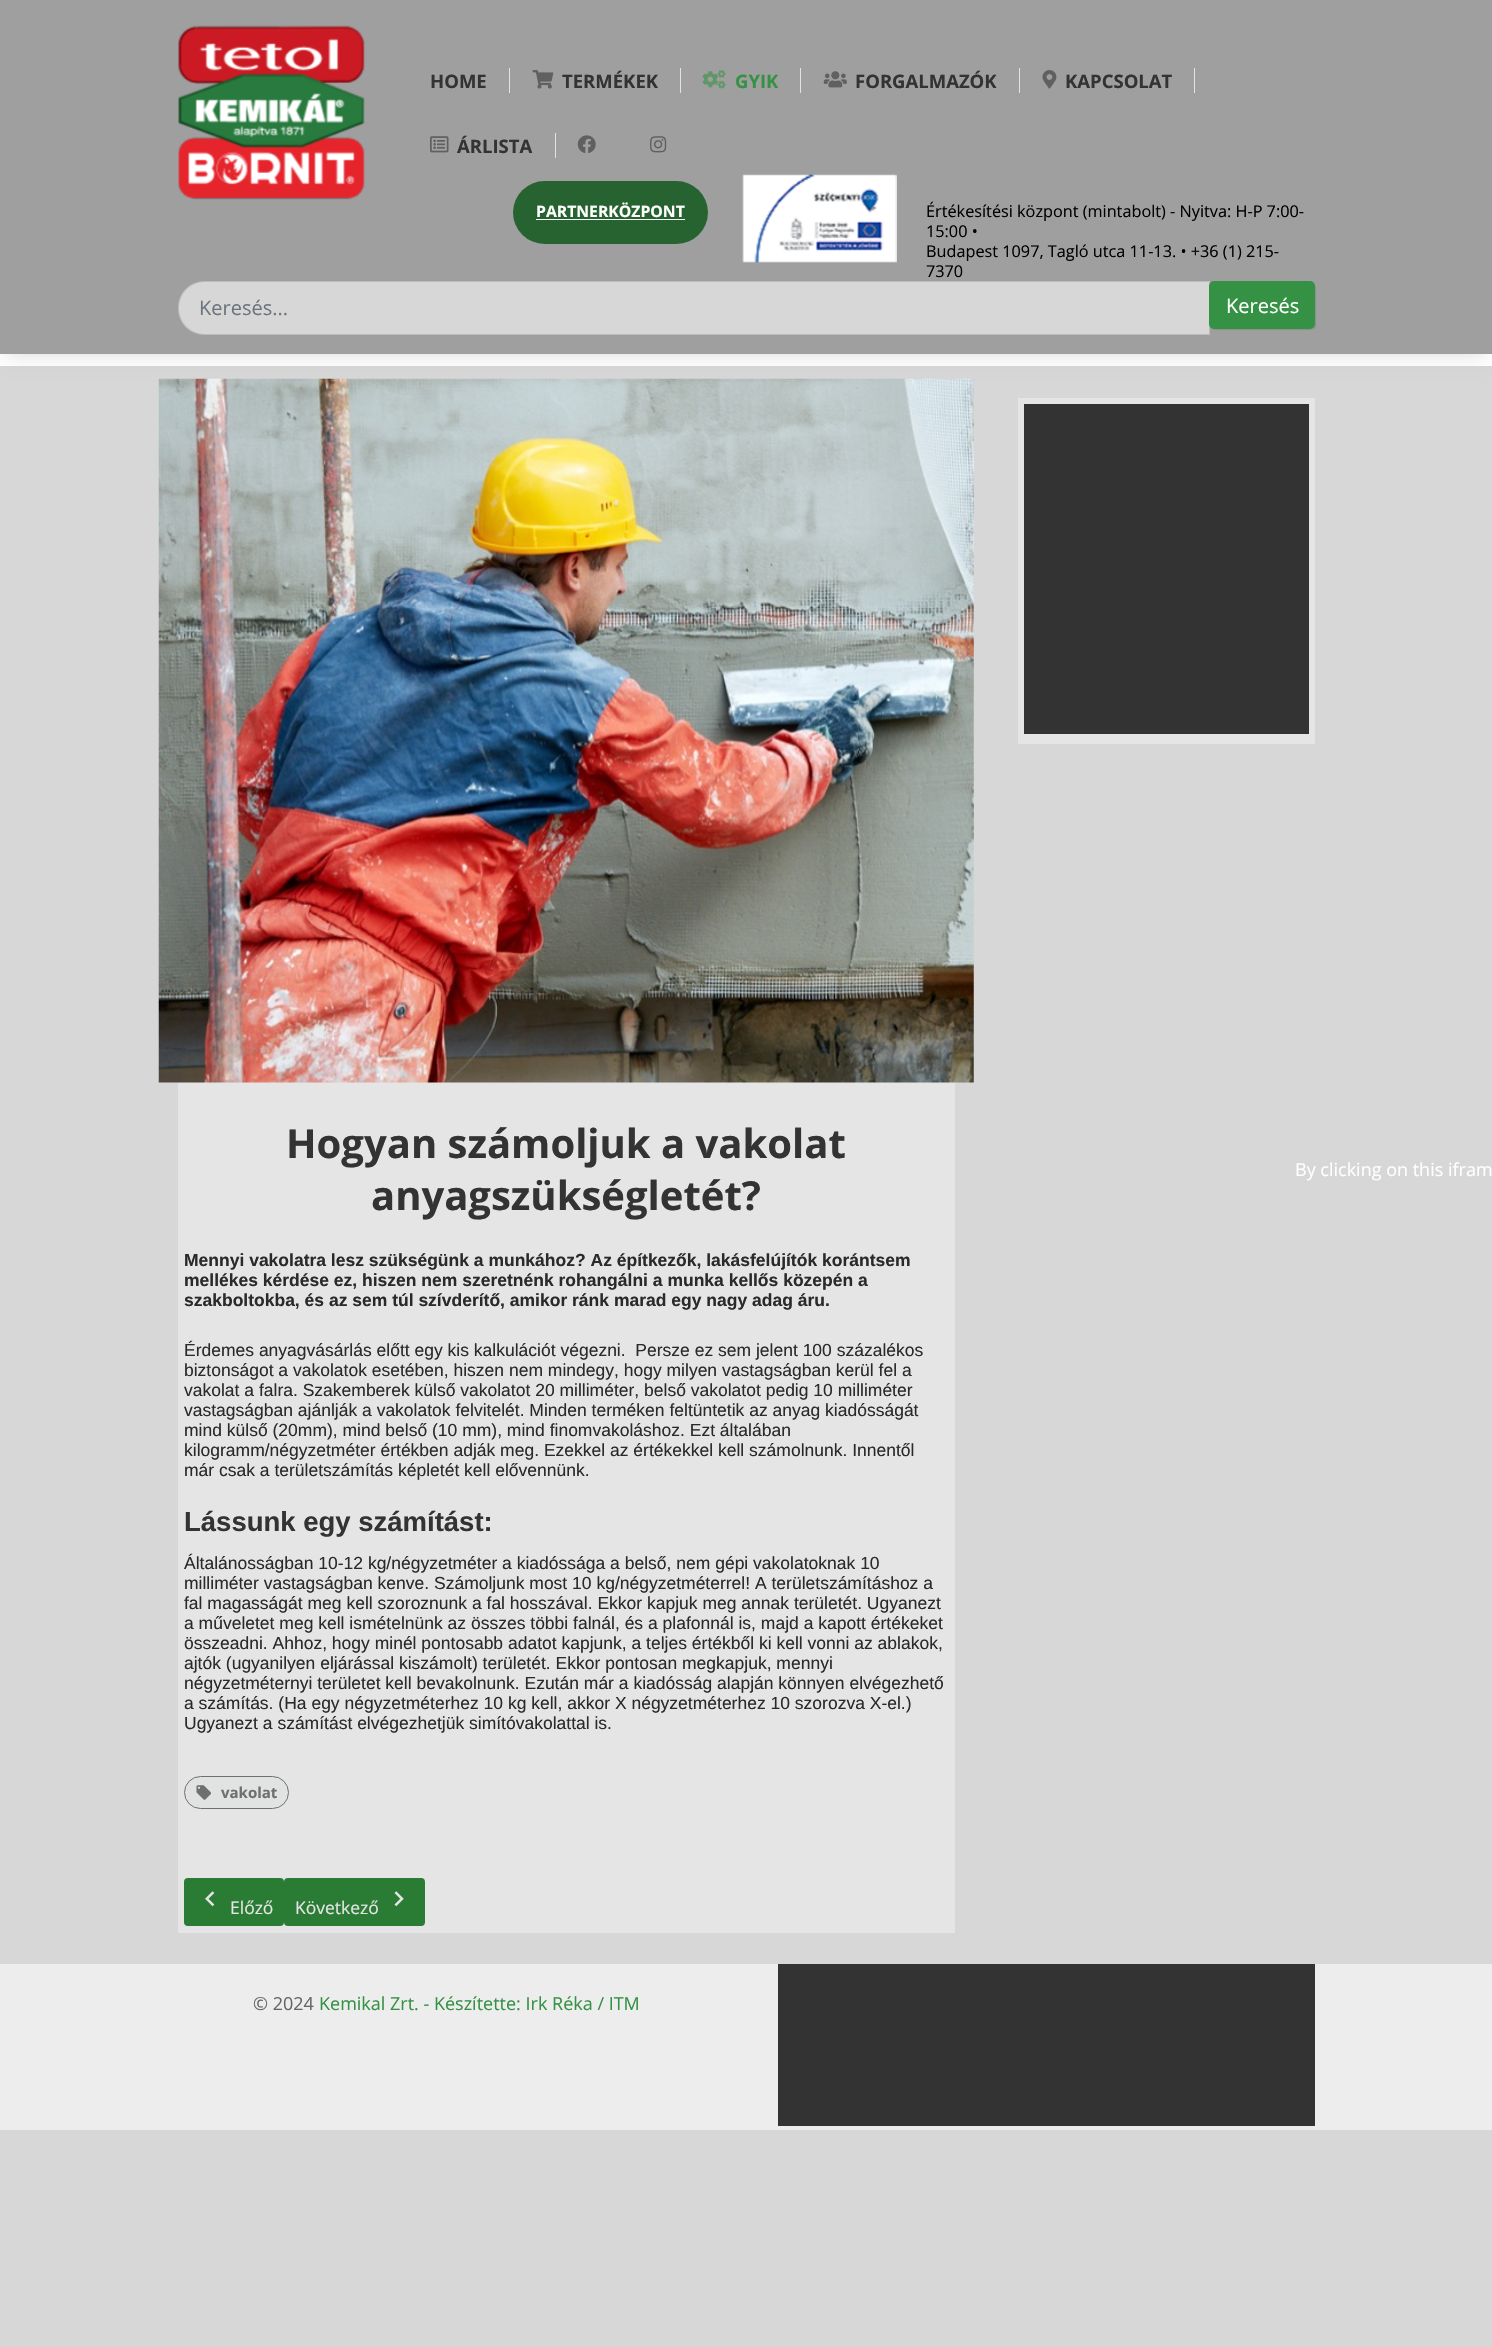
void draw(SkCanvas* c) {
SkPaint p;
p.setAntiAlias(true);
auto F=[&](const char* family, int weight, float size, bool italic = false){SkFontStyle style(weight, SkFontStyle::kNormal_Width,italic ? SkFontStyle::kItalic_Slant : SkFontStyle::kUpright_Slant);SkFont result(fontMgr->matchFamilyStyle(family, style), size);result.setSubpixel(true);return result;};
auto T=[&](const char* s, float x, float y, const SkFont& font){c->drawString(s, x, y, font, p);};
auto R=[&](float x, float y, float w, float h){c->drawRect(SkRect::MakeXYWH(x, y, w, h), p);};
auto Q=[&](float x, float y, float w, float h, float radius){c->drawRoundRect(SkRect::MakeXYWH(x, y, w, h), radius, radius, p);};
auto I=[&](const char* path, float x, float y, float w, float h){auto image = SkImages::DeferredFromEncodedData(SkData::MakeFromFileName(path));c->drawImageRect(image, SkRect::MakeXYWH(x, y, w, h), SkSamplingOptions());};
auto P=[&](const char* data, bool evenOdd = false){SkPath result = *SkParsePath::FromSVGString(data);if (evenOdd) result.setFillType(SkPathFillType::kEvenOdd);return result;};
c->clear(0xffd7d7d7);
p.setColor(0xffffffff);
R(0,354,1492,12);
p.setColor(0xffe5e5e5);
R(178,1082,777,851);
I("10.png",158,378,816,705);
p.setColor(0x26000000);
p.setMaskFilter(SkMaskFilter::MakeBlur(kNormal_SkBlurStyle, 9.5));
c->drawRect(SkRect::MakeXYWH(6,13,1480,341),p);
p.setMaskFilter(nullptr);
p.setColor(0xff9f9f9f);
R(0,0,1492,354);
I("1.png",178,25,187,175);
p.setColor(0xffe2e2e2);
R(509,68,1,25);
auto f1 = F("Open Sans",700,18.5);
p.setColor(0xff333333);
T("HOME",430,88,f1);
I("2.png",532,70,22,19);
p.setColor(0xffe2e2e2);
R(680,68,1,25);
p.setColor(0xff333333);
T("TERMÉKEK",562,88,f1);
I("3.png",702,70,24,19);
p.setColor(0xffe2e2e2);
R(800,68,1,25);
p.setColor(0xff359144);
T("GYIK",735,88,f1);
I("4.png",823,71,24,17);
p.setColor(0xffe2e2e2);
R(1019,68,1,25);
p.setColor(0xff333333);
T("FORGALMAZÓK",855,88,f1);
I("5.png",1042,70,15,19);
p.setColor(0xffe2e2e2);
R(1194,68,1,25);
p.setColor(0xff333333);
T("KAPCSOLAT",1065,88,f1);
I("6.png",430,136,19,17);
p.setColor(0xffe2e2e2);
R(555,133,1,25);
p.setColor(0xff333333);
T("ÁRLISTA",457,153,f1);
I("7.png",577,135,19,18);
I("8.png",650,136,17,17);
p.setColor(0xff276331);
Q(513,181,195,63,31.5);
auto f2 = F("Open Sans",700,15.75);
p.setColor(0xffffffff);
T("PARTNERKÖZPONT",536,217,f2);
R(536,219,149,1);
I("9.png",742,174,155,89);
auto f3 = F("Open Sans",400,16.25);
p.setColor(0xff000000);
T("Értékesítési központ (mintabolt) - Nyitva: H-P 7:00-",926,217,f3);
T("15:00 •",926,237,f3);
T("Budapest 1097, Tagló utca 11-13. • +36 (1) 215-",926,257,f3);
T("7370",926,277,f3);
p.setColor(0xffd7d7d7);
c->drawPath(P("M205 281h1005v54h-1005c-15 0-27-12-27-27c0-15 12-27 27-27z"),p);
p.setStroke(true);
p.setStrokeWidth(1);
p.setColor(0x26222426);
c->drawPath(P("M205 281.5h1004.5v53h-1004.5c-14.5 0-26.5-12-26.5-26.5c0-14.5 12-26.5 26.5-26.5z"),p);
auto f4 = F("Open Sans",400,20);
p.setStroke(false);
p.setColor(0xff6c757d);
T("Keresés...",199,315,f4);
p.setColor(0x1a000000);
p.setMaskFilter(SkMaskFilter::MakeBlur(kNormal_SkBlurStyle, .5));
c->drawRoundRect(SkRect::MakeXYWH(1210,283,106,47),5,5,p);
p.setMaskFilter(nullptr);
p.setColor(0xff359144);
Q(1209,281,106,48,5);
p.setColor(0xffffffff);
T("Keresés",1226,313,f4);
p.setColor(0xffe5e5e5);
R(1018,398,297,346);
p.setColor(0xff333333);
R(1024,404,285,330);
auto f5 = F("Open Sans",700,40);
T("Hogyan számoljuk a vakolat",286,1158,f5);
T("anyagszükségletét?",371,1210,f5);
auto f6 = F("Liberation Sans",700,17.5);
p.setColor(0xff2a2a2a);
T("Mennyi vakolatra lesz szükségünk a munkához? Az építkezők, lakásfelújítók korántsem",184,1266,f6);
T("mellékes kérdése ez, hiszen nem szeretnénk rohangálni a munka kellős közepén a",184,1286,f6);
T("szakboltokba, és az sem túl szívderítő, amikor ránk marad egy nagy adag áru.",184,1306,f6);
auto f7 = F("Liberation Sans",400,17.5);
T("Érdemes anyagvásárlás előtt egy kis kalkulációt végezni.  Persze ez sem jelent 100 százalékos",184,1356,f7);
T("biztonságot a vakolatok esetében, hiszen nem mindegy, hogy milyen vastagságban kerül fel a",184,1376,f7);
T("vakolat a falra. Szakemberek külső vakolatot 20 milliméter, belső vakolatot pedig 10 milliméter",184,1396,f7);
T("vastagságban ajánlják a vakolatok felvitelét. Minden terméken feltüntetik az anyag kiadósságát",184,1416,f7);
T("mind külső (20mm), mind belső (10 mm), mind finomvakoláshoz. Ezt általában",184,1436,f7);
T("kilogramm/négyzetméter értékben adják meg. Ezekkel az értékekkel kell számolnunk. Innentől",184,1456,f7);
T("már csak a területszámítás képletét kell elővennünk.",184,1476,f7);
auto f8 = F("Liberation Sans",700,27.5);
p.setColor(0xff333333);
T("Lássunk egy számítást:",184,1531,f8);
p.setColor(0xff2a2a2a);
T("Általánosságban 10-12 kg/négyzetméter a kiadóssága a belső, nem gépi vakolatoknak 10",184,1569,f7);
T("milliméter vastagságban kenve. Számoljunk most 10 kg/négyzetméterrel! A területszámításhoz a",184,1589,f7);
T("fal magasságát meg kell szoroznunk a fal hosszával. Ekkor kapjuk meg annak területét. Ugyanezt",184,1609,f7);
T("a műveletet meg kell ismételnünk az összes többi falnál, és a plafonnál is, majd a kapott értékeket",184,1629,f7);
T("összeadni. Ahhoz, hogy minél pontosabb adatot kapjunk, a teljes értékből ki kell vonni az ablakok,",184,1649,f7);
T("ajtók (ugyanilyen eljárással kiszámolt) területét. Ekkor pontosan megkapjuk, mennyi",184,1669,f7);
T("négyzetméternyi területet kell bevakolnunk. Ezután már a kiadósság alapján könnyen elvégezhető",184,1689,f7);
T("a számítás. (Ha egy négyzetméterhez 10 kg kell, akkor X négyzetméterhez 10 szorozva X-el.)",184,1709,f7);
T("Ugyanezt a számítást elvégezhetjük simítóvakolattal is.",184,1729,f7);
p.setColor(0xffe1e2e2);
c->drawRoundRect(SkRect::MakeXYWH(184.5,1776.5,104,32),16,16,p);
p.setStroke(true);
p.setColor(0xff6e6f6f);
c->drawRoundRect(SkRect::MakeXYWH(184.5,1776.5,104,32),16,16,p);
I("11.png",196,1785,15,15);
auto f9 = F("Open Sans",700,15);
p.setStroke(false);
T("vakolat",221,1798,f9);
p.setColor(0xff2a7c35);
Q(184,1878,100,48,4);
I("12.png",205,1891,10,16);
auto f10 = F("Open Sans",400,17.5);
p.setColor(0xffe5e5e5);
T("Előző",230,1914,f10);
p.setColor(0xff2a7c35);
Q(284,1878,141,48,4);
p.setColor(0xffe5e5e5);
T("Következő",295,1914,f10);
I("13.png",394,1891,10,16);
p.setColor(0xffededed);
R(0,1964,1492,166);
auto f11 = F("Open Sans",400,18);
p.setColor(0xffffffff);
T("By clicking on this ifram",1295,1176,f11);
p.setColor(0xff333333);
R(778,1964,537,162);
p.setColor(0xff666666);
T("© 2024",253,2010,f11);
p.setColor(0xff359144);
T("Kemikal Zrt. - Készítette: Irk Réka / ITM",319,2010,f11);
}
